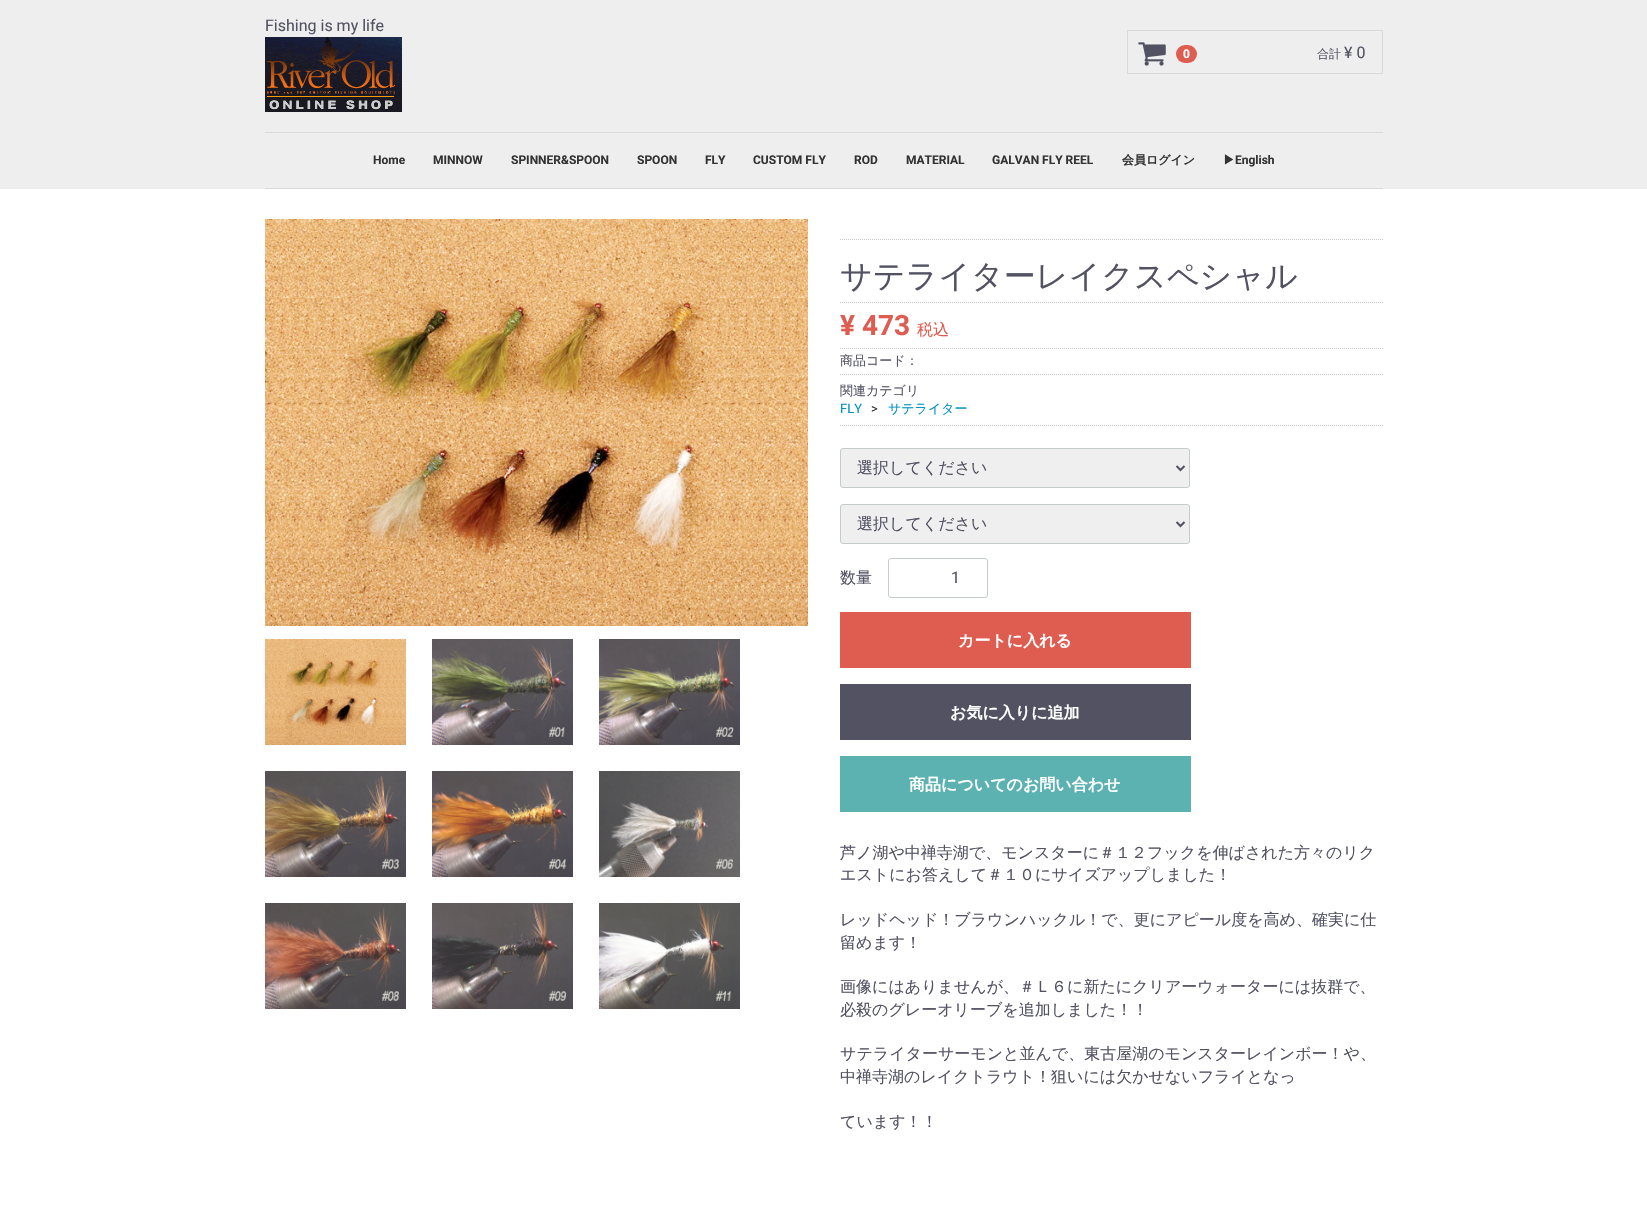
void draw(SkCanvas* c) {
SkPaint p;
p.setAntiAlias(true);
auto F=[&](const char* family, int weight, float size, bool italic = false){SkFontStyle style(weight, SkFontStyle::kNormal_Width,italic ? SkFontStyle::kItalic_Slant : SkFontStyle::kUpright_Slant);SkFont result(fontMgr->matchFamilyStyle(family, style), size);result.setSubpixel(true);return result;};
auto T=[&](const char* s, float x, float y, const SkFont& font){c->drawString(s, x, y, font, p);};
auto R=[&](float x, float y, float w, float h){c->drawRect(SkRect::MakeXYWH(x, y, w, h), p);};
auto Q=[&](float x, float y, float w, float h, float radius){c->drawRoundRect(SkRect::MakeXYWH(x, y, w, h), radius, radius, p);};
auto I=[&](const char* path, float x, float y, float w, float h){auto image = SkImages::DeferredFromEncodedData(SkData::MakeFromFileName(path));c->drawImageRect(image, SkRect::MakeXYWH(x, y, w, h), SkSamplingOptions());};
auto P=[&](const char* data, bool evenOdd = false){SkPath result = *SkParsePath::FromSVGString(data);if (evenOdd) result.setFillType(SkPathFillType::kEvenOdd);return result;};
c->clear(0xffffffff);
p.setColor(0xffeeeeee);
R(0,0,1647,189);
auto f1 = F("Roboto",400,16);
p.setColor(0xff525263);
T("Fishing is my life",265,31,f1);
I("1.png",265,37,137,75);
p.setStroke(true);
p.setStrokeWidth(1);
p.setColor(0xffd9d9d9);
c->drawRect(SkRect::MakeXYWH(1127.5,30.5,255,43),p);
I("2.png",1138,42,28,24);
p.setStroke(false);
p.setColor(0xffde5d50);
Q(1176,45,21,18,9);
auto f2 = F("Roboto",700,12);
p.setColor(0xffffffff);
T("0",1183,58,f2);
auto f3 = F("WenQuanYi Zen Hei",500,12);
p.setColor(0xff525263);
T("合計",1317,58,f3);
T("¥ 0",1344,58,f1);
p.setColor(0xffd9d9d9);
R(265,132,1118,1);
R(265,188,1118,1);
p.setColor(0xff333333);
T("Home",373,164,f2);
T("MINNOW",433,164,f2);
T("SPINNER&SPOON",511,164,f2);
T("SPOON",637,164,f2);
T("FLY",705,164,f2);
T("CUSTOM FLY",753,164,f2);
T("ROD",854,164,f2);
T("MATERIAL",906,164,f2);
T("GALVAN FLY REEL",992,164,f2);
auto f4 = F("WenQuanYi Zen Hei",700,12);
T("会員ログイン",1122,164,f4);
T("▶",1223,164,f4);
T("English",1235,164,f2);
I("3.png",265,219,543,407);
I("4.png",265,639,141,106);
I("5.png",432,639,141,106);
I("6.png",599,639,141,106);
I("7.png",265,771,141,106);
I("8.png",432,771,141,106);
I("9.png",599,771,141,106);
I("10.png",265,903,141,106);
I("11.png",432,903,141,106);
I("12.png",599,903,141,106);
p.setStroke(true);
p.setColor(0xffcccccc);
p.setPathEffect(SkDashPathEffect::Make({{1,1}}, 0));
c->drawPath(P("M840 239.5h543"),p);
p.setPathEffect(nullptr);
auto f5 = F("WenQuanYi Zen Hei",500,32);
p.setStroke(false);
p.setColor(0xff525263);
T("サテライターレイクスペシャル",840,287,f5);
p.setStroke(true);
p.setColor(0xffcccccc);
p.setPathEffect(SkDashPathEffect::Make({{1,1}}, 0));
c->drawPath(P("M840 302.5h543"),p);
p.setPathEffect(nullptr);
auto f6 = F("Roboto",700,28);
p.setStroke(false);
p.setColor(0xffde5d50);
T("¥ 473",840,335,f6);
auto f7 = F("WenQuanYi Zen Hei",500,16);
T("税込",917,335,f7);
p.setStroke(true);
p.setColor(0xffcccccc);
p.setPathEffect(SkDashPathEffect::Make({{1,1}}, 0));
c->drawPath(P("M840 348.5h543"),p);
p.setPathEffect(nullptr);
auto f8 = F("WenQuanYi Zen Hei",500,13);
p.setStroke(false);
p.setColor(0xff525263);
T("商品コード：",840,365,f8);
p.setStroke(true);
p.setColor(0xffcccccc);
p.setPathEffect(SkDashPathEffect::Make({{1,1}}, 0));
c->drawPath(P("M840 374.5h543"),p);
p.setPathEffect(nullptr);
p.setPathEffect(SkDashPathEffect::Make({{1,1}}, 0));
c->drawPath(P("M840 425.5h543"),p);
p.setPathEffect(nullptr);
p.setStroke(false);
p.setColor(0xff525263);
T("関連カテゴリ",840,395,f8);
auto f9 = F("Roboto",400,13);
p.setColor(0xff0092c4);
T("FLY",840,413,f9);
p.setColor(0xff333333);
T(">",871,413,f9);
p.setColor(0xff0092c4);
T("サテライター",888,413,f8);
p.setColor(0xffefefef);
c->drawRoundRect(SkRect::MakeXYWH(840.5,448.5,349,39),2.5,2.5,p);
p.setStroke(true);
p.setColor(0xffc4ccce);
c->drawRoundRect(SkRect::MakeXYWH(840.5,448.5,349,39),2.5,2.5,p);
p.setStrokeWidth(2);
p.setColor(0xff525263);
c->drawPath(P("M1176.5 466l4 4l4-4"),p);
p.setStroke(false);
T("選択してください",857,473,f7);
p.setColor(0xffefefef);
c->drawRoundRect(SkRect::MakeXYWH(840.5,504.5,349,39),2.5,2.5,p);
p.setStroke(true);
p.setStrokeWidth(1);
p.setColor(0xffc4ccce);
c->drawRoundRect(SkRect::MakeXYWH(840.5,504.5,349,39),2.5,2.5,p);
p.setStrokeWidth(2);
p.setColor(0xff525263);
c->drawPath(P("M1176.5 522l4 4l4-4"),p);
p.setStroke(false);
T("選択してください",857,529,f7);
T("数量",840,583,f7);
p.setStroke(true);
p.setStrokeWidth(1);
p.setColor(0xffc4ccce);
c->drawRoundRect(SkRect::MakeXYWH(888.5,558.5,99,39),2.5,2.5,p);
p.setStroke(false);
p.setColor(0xff525263);
T("1",951,583,f1);
p.setColor(0xffde5d50);
R(840,612,351,56);
auto f10 = F("WenQuanYi Zen Hei",700,16);
p.setColor(0xffffffff);
T("カートに入れる",958,646,f10);
p.setColor(0xff525263);
R(840,684,351,56);
p.setColor(0xffffffff);
T("お気に入りに追加",950,718,f10);
p.setColor(0xff5cb1b1);
R(840,756,351,56);
p.setColor(0xffffffff);
T("商品についてのお問い合わせ",909,790,f10);
p.setColor(0xff525263);
T("芦ノ湖や中禅寺湖で、モンスターに＃１２フックを伸ばされた方々のリク",840,858,f7);
T("エストにお答えして＃１０にサイズアップしました！",840,880,f7);
T("レッドヘッド！ブラウンハックル！で、更にアピール度を高め、確実に仕",840,925,f7);
T("留めます！",840,948,f7);
T("画像にはありませんが、＃Ｌ６に新たにクリアーウォーターには抜群で、",840,992,f7);
T("必殺のグレーオリーブを追加しました！！",840,1015,f7);
T("サテライターサーモンと並んで、東古屋湖のモンスターレインボー！や、",840,1059,f7);
T("中禅寺湖のレイクトラウト！狙いには欠かせないフライとなっ",840,1082,f7);
T("ています！！",840,1127,f7);
}
